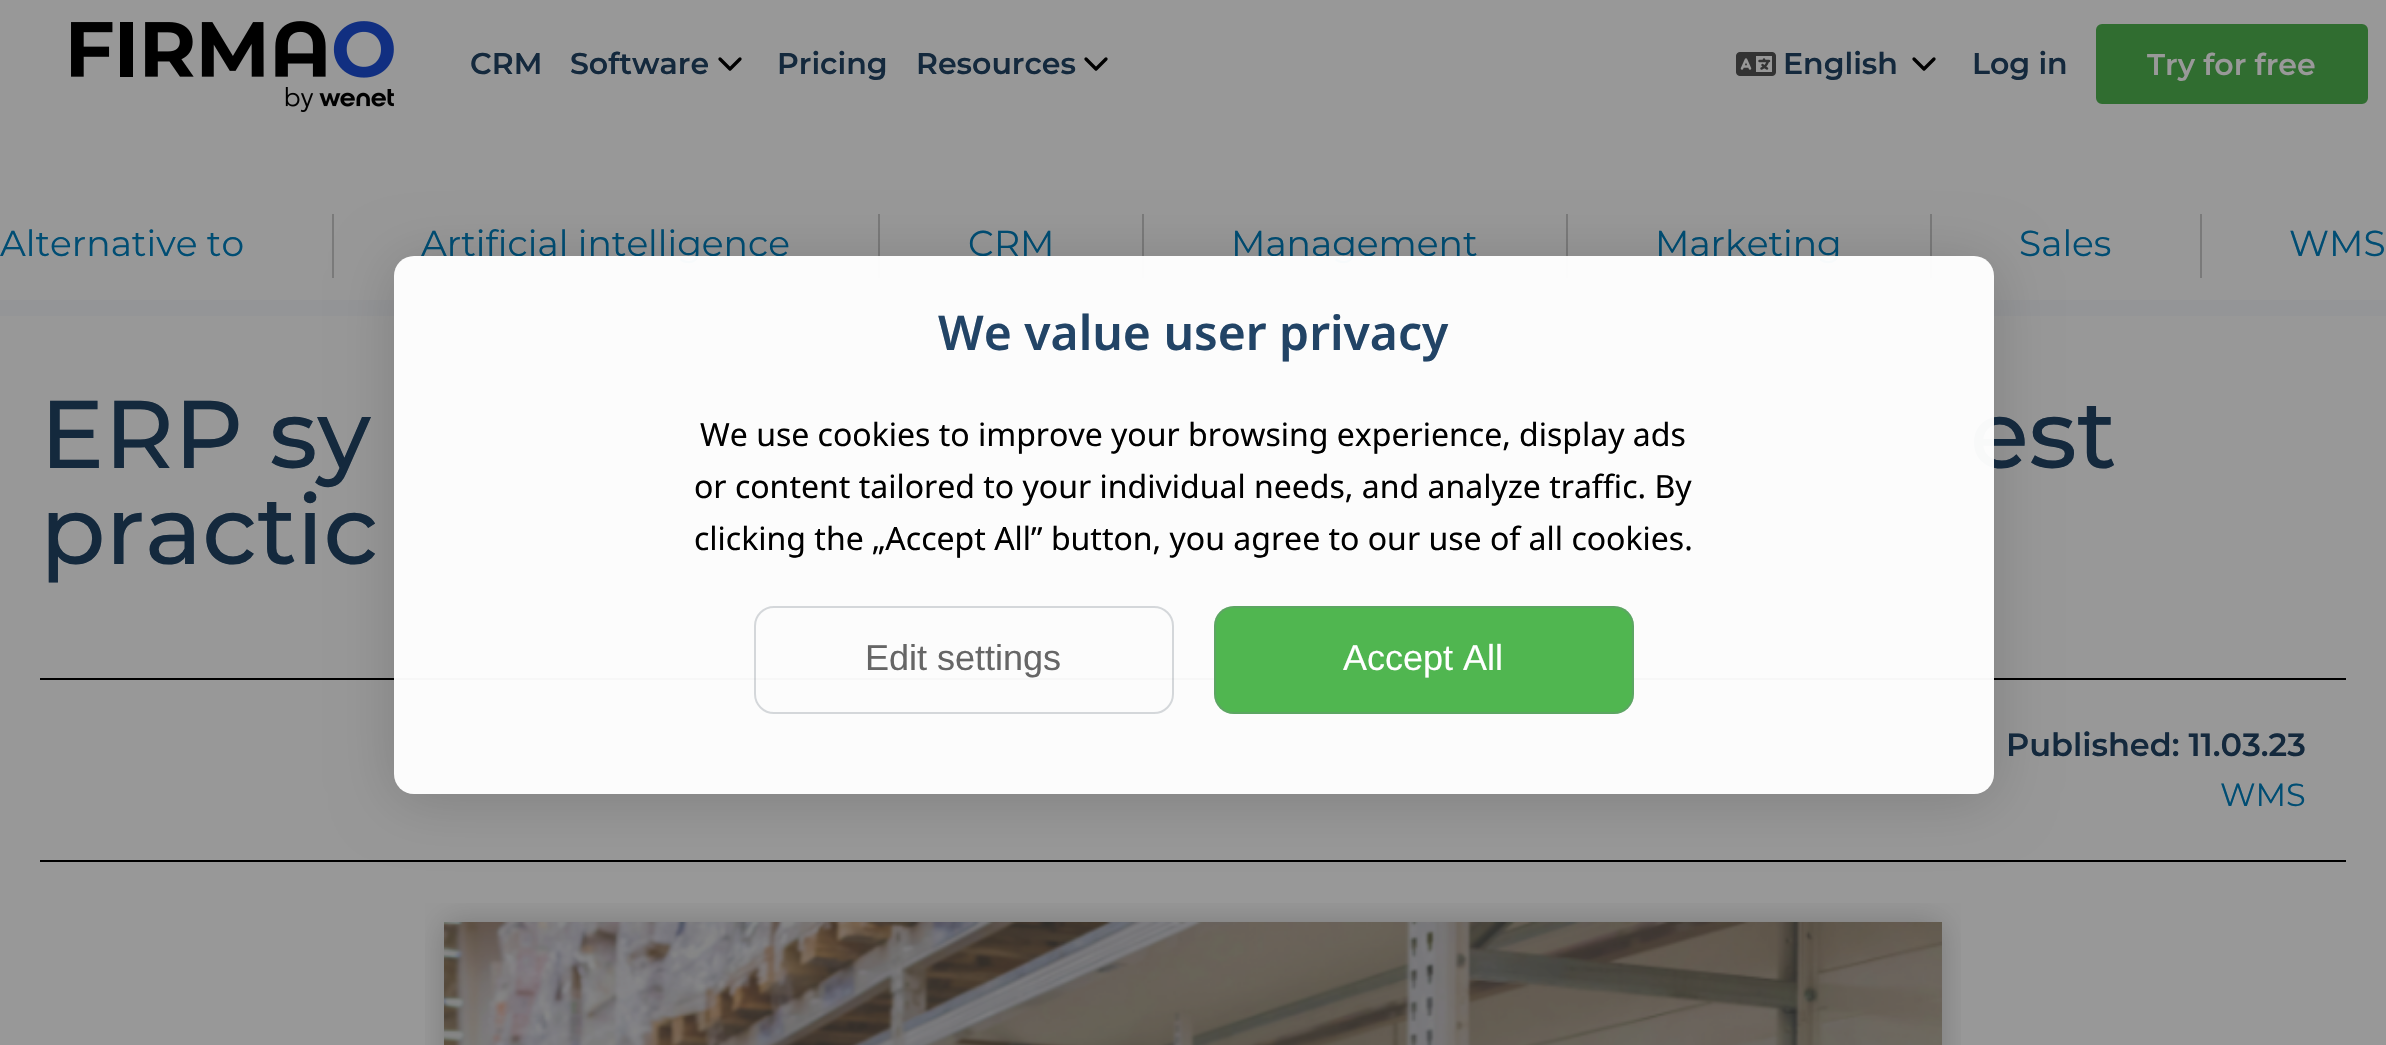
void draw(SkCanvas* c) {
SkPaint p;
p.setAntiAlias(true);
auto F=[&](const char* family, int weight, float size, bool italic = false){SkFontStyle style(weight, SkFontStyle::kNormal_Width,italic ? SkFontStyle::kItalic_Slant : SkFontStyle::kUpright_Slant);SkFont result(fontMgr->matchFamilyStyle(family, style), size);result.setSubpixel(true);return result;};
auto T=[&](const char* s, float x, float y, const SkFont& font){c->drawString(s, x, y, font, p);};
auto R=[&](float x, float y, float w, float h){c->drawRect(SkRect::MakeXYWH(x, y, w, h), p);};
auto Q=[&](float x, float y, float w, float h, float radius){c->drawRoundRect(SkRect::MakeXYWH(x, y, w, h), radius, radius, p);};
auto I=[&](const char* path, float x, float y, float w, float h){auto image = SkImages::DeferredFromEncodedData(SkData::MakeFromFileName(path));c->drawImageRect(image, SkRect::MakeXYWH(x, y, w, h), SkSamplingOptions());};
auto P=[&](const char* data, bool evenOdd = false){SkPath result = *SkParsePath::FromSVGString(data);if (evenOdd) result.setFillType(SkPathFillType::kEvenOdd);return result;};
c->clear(0xff989898);
I("1.png",71,21,323,91);
auto f1 = F("Montserrat",600,30);
p.setColor(0xff14293d);
T("CRM",470,74,f1);
T("Software",570,74,f1);
p.setStroke(true);
p.setStrokeWidth(3.3);
p.setStrokeCap(SkPaint::kRound_Cap);
p.setStrokeJoin(SkPaint::kRound_Join);
p.setColor(0xff000000);
c->drawPath(P("M720 59l10 10l10-10"),p);
p.setStroke(false);
p.setColor(0xff14293d);
T("Pricing",777,74,f1);
T("Resources",916,74,f1);
p.setStroke(true);
p.setColor(0xff000000);
c->drawPath(P("M1086 59l10 10l10-10"),p);
I("2.png",1736,52,40,24);
p.setStroke(false);
p.setColor(0xff14293d);
T("English",1783,74,f1);
p.setStroke(true);
p.setColor(0xff000000);
c->drawPath(P("M1914 59l10 10l10-10"),p);
p.setStroke(false);
p.setColor(0xff14293d);
T("Log in",1972,74,f1);
p.setColor(0xff306d30);
c->drawRoundRect(SkRect::MakeXYWH(2097,25,270,78),5,5,p);
p.setStroke(true);
p.setStrokeWidth(2);
p.setStrokeCap(SkPaint::kButt_Cap);
p.setStrokeJoin(SkPaint::kMiter_Join);
c->drawRoundRect(SkRect::MakeXYWH(2097,25,270,78),5,5,p);
p.setStroke(false);
p.setColor(0xff999999);
T("Try for free",2147,75,f1);
auto f2 = F("Montserrat",400,36);
p.setColor(0xff004d73);
T("Alternative to",0,256,f2);
p.setColor(0xff7a7a7a);
R(332,214,2,64);
p.setColor(0xff004d73);
T("Artificial intelligence",421,256,f2);
p.setColor(0xff7a7a7a);
R(878,214,2,64);
p.setColor(0xff004d73);
T("CRM",968,256,f2);
p.setColor(0xff7a7a7a);
R(1142,214,2,64);
p.setColor(0xff004d73);
T("Management",1231,256,f2);
p.setColor(0xff7a7a7a);
R(1566,214,2,64);
p.setColor(0xff004d73);
T("Marketing",1655,256,f2);
p.setColor(0xff7a7a7a);
R(1930,214,2,64);
p.setColor(0xff004d73);
T("Sales",2019,256,f2);
p.setColor(0xff7a7a7a);
R(2200,214,2,64);
p.setColor(0xff004d73);
T("WMS",2289,256,f2);
p.setColor(0xff949597);
R(0,300,2386,16);
p.setColor(0xff000000);
R(40,678,2306,2);
R(40,860,2306,2);
c->save();
c->clipPath(P("M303 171h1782v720h-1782zm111 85h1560c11 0 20 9 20 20v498c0 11-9 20-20 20h-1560c-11 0-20-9-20-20v-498c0-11 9-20 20-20z",true),true);
p.setColor(0x29000000);
p.setMaskFilter(SkMaskFilter::MakeBlur(kNormal_SkBlurStyle, 30));
c->drawRoundRect(SkRect::MakeXYWH(394,262,1600,538),20,20,p);
p.setMaskFilter(nullptr);
c->restore();
auto f3 = F("Montserrat",500,96);
p.setColor(0xff14293d);
T("est",1970,468,f3);
p.setColor(0xf7ffffff);
Q(394,256,1600,538,20);
auto f4 = F("Noto Sans",600,48);
p.setColor(0xff224466);
T("We value user privacy",938,350,f4);
auto f5 = F("Noto Sans",400,32);
p.setColor(0xff000000);
T("We use cookies to improve your browsing experience, display ads",700,446,f5);
T("or content tailored to your individual needs, and analyze traffic. By",694,498,f5);
T("clicking the „Accept All” button, you agree to our use of all cookies.",694,550,f5);
p.setStroke(true);
p.setColor(0x4d78828c);
c->drawRoundRect(SkRect::MakeXYWH(755,607,418,106),19,19,p);
auto f6 = F("Liberation Sans",400,36);
p.setStroke(false);
p.setColor(0xff666666);
T("Edit settings",865,670,f6);
p.setColor(0xff50b650);
Q(1214,606,420,108,20);
p.setStroke(true);
p.setColor(0x4d78828c);
c->drawRoundRect(SkRect::MakeXYWH(1215,607,418,106),19,19,p);
p.setStroke(false);
p.setColor(0xffffffff);
T("Accept All",1343,670,f6);
p.setColor(0xff14293d);
T("ERP sy",40,468,f3);
T("practic",40,564,f3);
auto f7 = F("Montserrat",600,32);
T("Published: 11.03.23",2006,756,f7);
auto f8 = F("Montserrat",400,32);
p.setColor(0xff004d73);
T("WMS",2220,806,f8);
I("3.png",425,903,1536,142);
}
